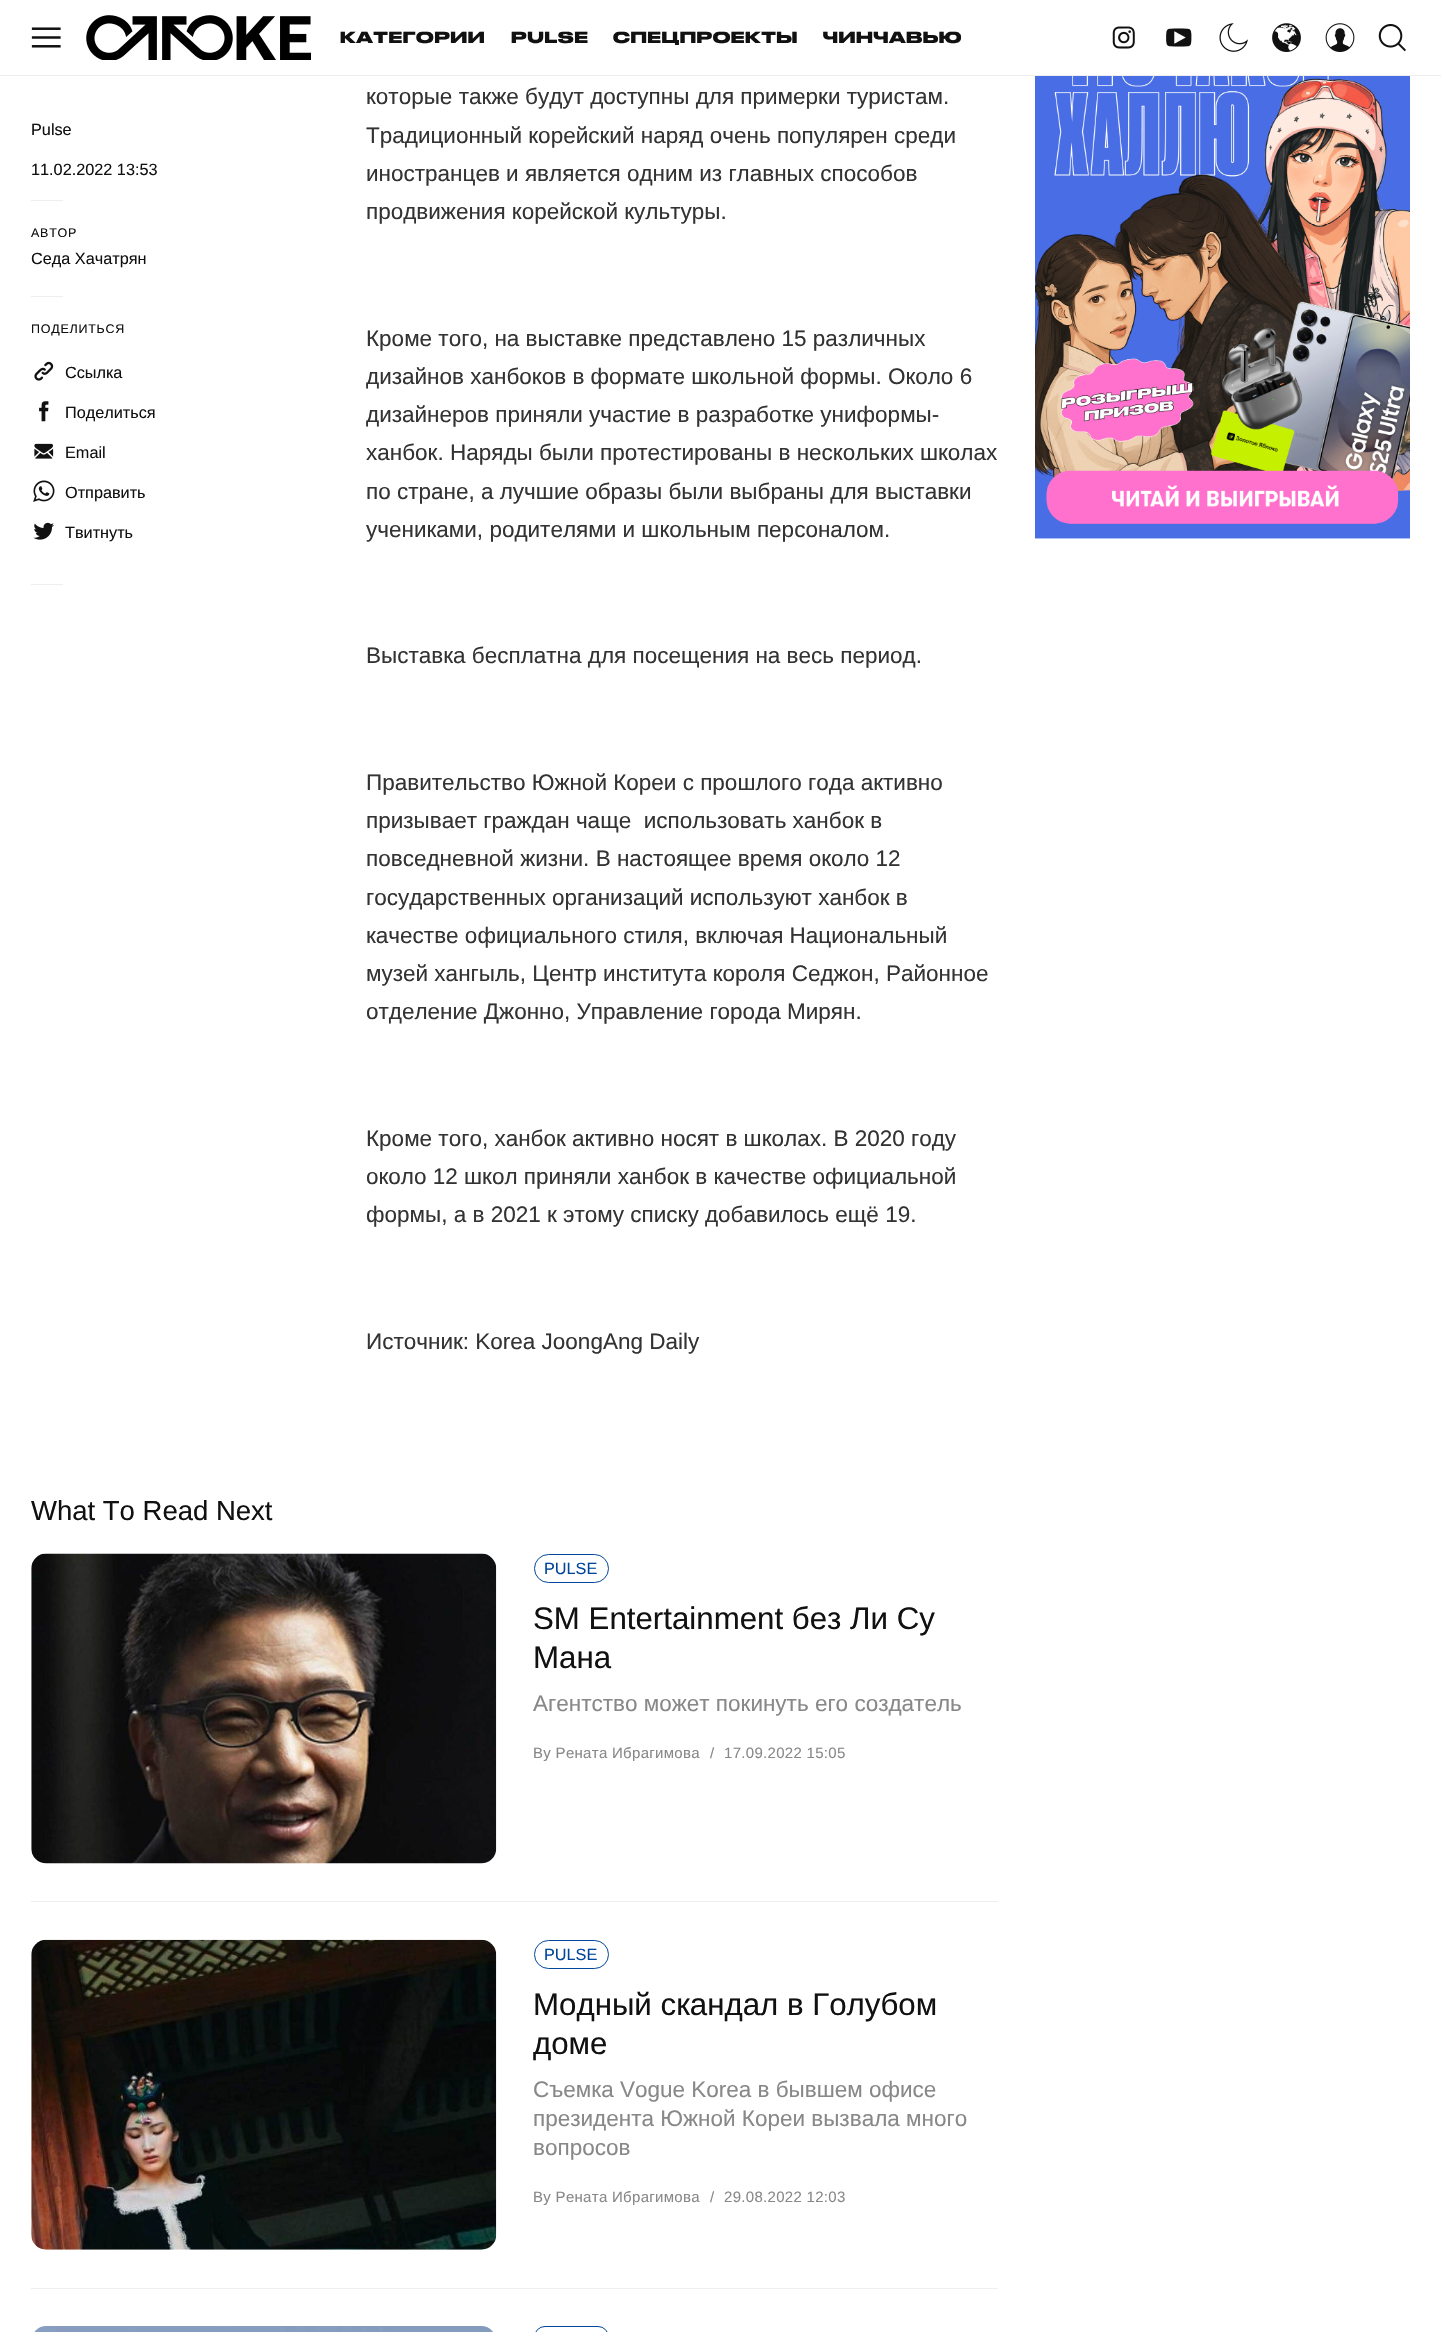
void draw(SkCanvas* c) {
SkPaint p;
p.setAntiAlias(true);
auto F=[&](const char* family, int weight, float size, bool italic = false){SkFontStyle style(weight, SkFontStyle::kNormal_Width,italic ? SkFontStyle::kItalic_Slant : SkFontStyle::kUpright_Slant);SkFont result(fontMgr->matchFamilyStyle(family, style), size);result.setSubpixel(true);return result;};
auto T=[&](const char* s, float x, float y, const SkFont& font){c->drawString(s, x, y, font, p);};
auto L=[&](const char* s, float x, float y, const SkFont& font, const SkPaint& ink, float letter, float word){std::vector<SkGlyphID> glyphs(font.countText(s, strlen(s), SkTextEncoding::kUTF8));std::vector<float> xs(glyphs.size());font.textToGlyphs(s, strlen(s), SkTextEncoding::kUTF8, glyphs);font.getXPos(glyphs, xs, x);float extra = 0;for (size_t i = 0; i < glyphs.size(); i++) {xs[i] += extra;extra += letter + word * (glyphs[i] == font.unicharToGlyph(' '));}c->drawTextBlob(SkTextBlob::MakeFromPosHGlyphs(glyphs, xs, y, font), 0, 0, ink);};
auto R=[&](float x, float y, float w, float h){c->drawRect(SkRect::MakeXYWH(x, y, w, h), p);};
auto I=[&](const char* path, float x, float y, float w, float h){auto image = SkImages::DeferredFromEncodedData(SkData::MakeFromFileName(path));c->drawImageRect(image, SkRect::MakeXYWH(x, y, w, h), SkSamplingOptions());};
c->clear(0xffffffff);
p.setColor(0xffeeeeee);
R(0,75,1441,1);
I("1.png",31,27,30,21);
I("2.png",86,15,225,45);
auto f1 = F("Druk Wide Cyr",700,15);
p.setColor(0xff111111);
L("КАТЕГОРИИ",340,43,f1,p,.6,0);
L("PULSE",511,43,f1,p,.6,0);
L("СПЕЦПРОЕКТЫ",613,43,f1,p,.6,0);
L("ЧИНЧАВЬЮ",823,43,f1,p,.6,0);
I("3.png",1112,26,23,23);
I("4.png",1166,28,26,19);
I("5.png",1219,23,29,29);
I("6.png",1272,23,29,29);
I("7.png",1325,23,30,29);
I("8.png",1378,24,28,28);
auto f2 = F("Liberation Sans",400,16.25);
T("Pulse",31,135,f2);
T("11.02.2022 13:53",31,175,f2);
p.setColor(0xffeeeeee);
R(31,200,32,1);
auto f3 = F("Liberation Sans",400,12.5);
p.setColor(0xff111111);
L("АВТОР",31,237,f3,p,.75,0);
T("Седа Хачатрян",31,264,f2);
p.setColor(0xffeeeeee);
R(31,296,32,1);
p.setColor(0xff111111);
L("ПОДЕЛИТЬСЯ",31,333,f3,p,.75,0);
I("9.png",34,361,20,20);
T("Ссылка",65,378,f2);
I("10.png",39,401,10,21);
T("Поделиться",65,418,f2);
I("11.png",34,443,20,16);
T("Email",65,458,f2);
I("12.png",33,480,22,22);
T("Отправить",65,498,f2);
I("13.png",33,522,21,18);
T("Твитнуть",65,538,f2);
p.setColor(0xffeeeeee);
R(31,584,32,1);
auto f4 = F("Liberation Sans",400,22.5);
p.setColor(0xff333333);
T("которые также будут доступны для примерки туристам.",366,104,f4);
T("Традиционный корейский наряд очень популярен среди",366,143,f4);
T("иностранцев и является одним из главных способов",366,181,f4);
T("продвижения корейской культуры.",366,219,f4);
T("Кроме того, на выставке представлено 15 различных",366,346,f4);
T("дизайнов ханбоков в формате школьной формы. Около 6",366,384,f4);
T("дизайнеров приняли участие в разработке униформы-",366,422,f4);
T("ханбок. Наряды были протестированы в нескольких школах",366,460,f4);
T("по стране, а лучшие образы были выбраны для выставки",366,499,f4);
T("учениками, родителями и школьным персоналом.",366,537,f4);
T("Выставка бесплатна для посещения на весь период.",366,663,f4);
T("Правительство Южной Кореи с прошлого года активно",366,790,f4);
T("призывает граждан чаще  использовать ханбок в",366,828,f4);
T("повседневной жизни. В настоящее время около 12",366,866,f4);
T("государственных организаций используют ханбок в",366,905,f4);
T("качестве официального стиля, включая Национальный",366,943,f4);
T("музей хангыль, Центр института короля Седжон, Районное",366,981,f4);
T("отделение Джонно, Управление города Мирян.",366,1019,f4);
T("Кроме того, ханбок активно носят в школах. В 2020 году",366,1146,f4);
T("около 12 школ приняли ханбок в качестве официальной",366,1184,f4);
T("формы, а в 2021 к этому списку добавилось ещё 19.",366,1222,f4);
T("Источник: Korea JoongAng Daily",366,1349,f4);
I("14.png",1035,76,375,463);
auto f5 = F("Liberation Sans",400,27.5);
p.setColor(0xff111111);
T("What To Read Next",31,1520,f5);
I("15.png",31,1553,466,311);
p.setStroke(true);
p.setStrokeWidth(1);
p.setColor(0xff00469b);
c->drawRoundRect(SkRect::MakeXYWH(534.5,1554.5,74,28),14,14,p);
p.setStroke(false);
T("PULSE",544,1574,f2);
auto f6 = F("Liberation Sans",400,31.25);
p.setColor(0xff111111);
T("SM Entertainment без Ли Су",533,1629,f6);
T("Мана",533,1668,f6);
p.setColor(0xff888888);
T("Агентство может покинуть его создатель",533,1711,f4);
auto f7 = F("Liberation Sans",400,15);
L("By Рената Ибрагимова",533,1758,f7,p,.3,0);
L("/",710,1758,f7,p,.3,0);
L("17.09.2022 15:05",724,1758,f7,p,.3,0);
p.setColor(0xffeeeeee);
R(31,1901,967,1);
I("16.png",31,1939,466,311);
p.setStroke(true);
p.setColor(0xff00469b);
c->drawRoundRect(SkRect::MakeXYWH(534.5,1940.5,74,28),14,14,p);
p.setStroke(false);
T("PULSE",544,1960,f2);
p.setColor(0xff111111);
T("Модный скандал в Голубом",533,2015,f6);
T("доме",533,2054,f6);
p.setColor(0xff888888);
T("Съемка Vogue Korea в бывшем офисе",533,2097,f4);
T("президента Южной Кореи вызвала много",533,2126,f4);
T("вопросов",533,2155,f4);
L("By Рената Ибрагимова",533,2202,f7,p,.3,0);
L("/",710,2202,f7,p,.3,0);
L("29.08.2022 12:03",724,2202,f7,p,.3,0);
p.setColor(0xffeeeeee);
R(31,2288,967,1);
I("17.png",34,2326,459,6);
p.setStroke(true);
p.setColor(0xff00469b);
c->drawRoundRect(SkRect::MakeXYWH(534.5,2326.5,74,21),14,14,p);
}
